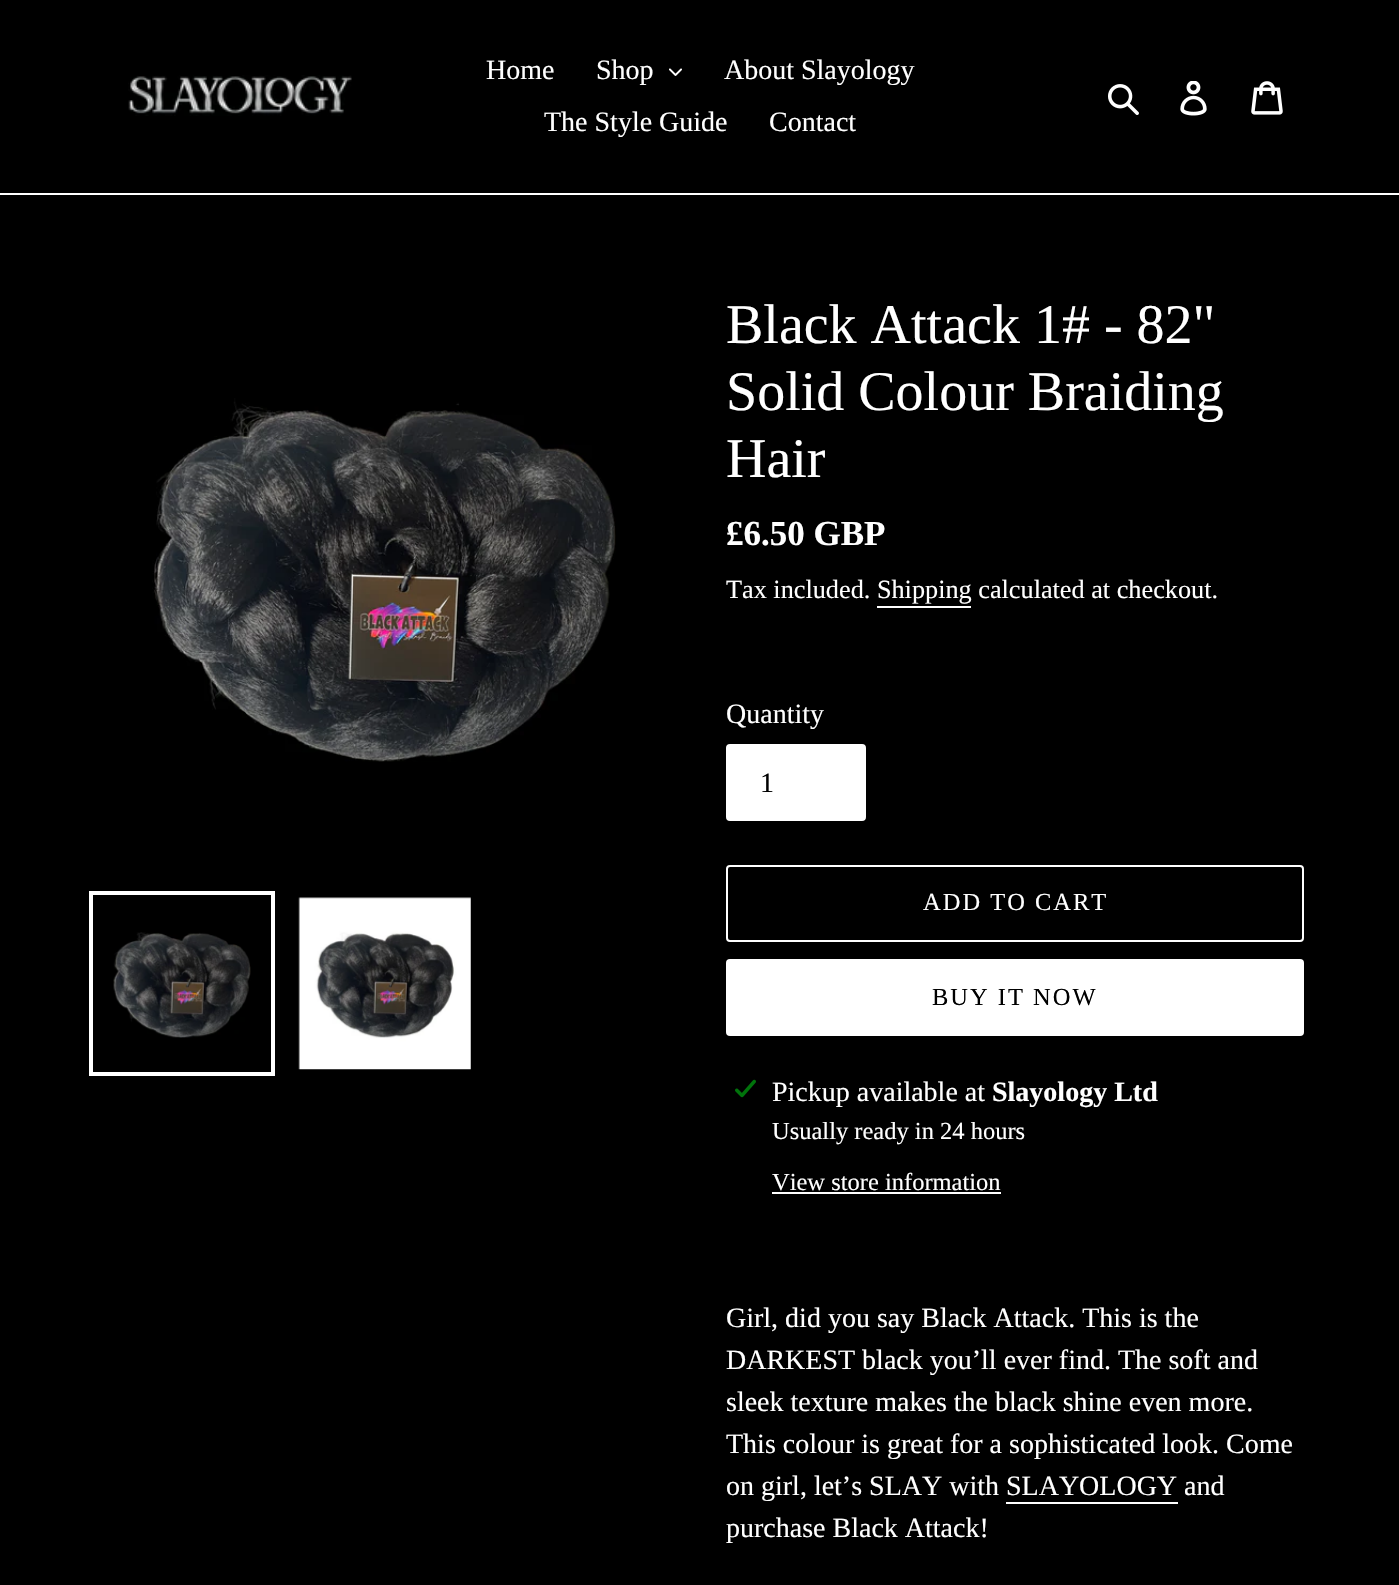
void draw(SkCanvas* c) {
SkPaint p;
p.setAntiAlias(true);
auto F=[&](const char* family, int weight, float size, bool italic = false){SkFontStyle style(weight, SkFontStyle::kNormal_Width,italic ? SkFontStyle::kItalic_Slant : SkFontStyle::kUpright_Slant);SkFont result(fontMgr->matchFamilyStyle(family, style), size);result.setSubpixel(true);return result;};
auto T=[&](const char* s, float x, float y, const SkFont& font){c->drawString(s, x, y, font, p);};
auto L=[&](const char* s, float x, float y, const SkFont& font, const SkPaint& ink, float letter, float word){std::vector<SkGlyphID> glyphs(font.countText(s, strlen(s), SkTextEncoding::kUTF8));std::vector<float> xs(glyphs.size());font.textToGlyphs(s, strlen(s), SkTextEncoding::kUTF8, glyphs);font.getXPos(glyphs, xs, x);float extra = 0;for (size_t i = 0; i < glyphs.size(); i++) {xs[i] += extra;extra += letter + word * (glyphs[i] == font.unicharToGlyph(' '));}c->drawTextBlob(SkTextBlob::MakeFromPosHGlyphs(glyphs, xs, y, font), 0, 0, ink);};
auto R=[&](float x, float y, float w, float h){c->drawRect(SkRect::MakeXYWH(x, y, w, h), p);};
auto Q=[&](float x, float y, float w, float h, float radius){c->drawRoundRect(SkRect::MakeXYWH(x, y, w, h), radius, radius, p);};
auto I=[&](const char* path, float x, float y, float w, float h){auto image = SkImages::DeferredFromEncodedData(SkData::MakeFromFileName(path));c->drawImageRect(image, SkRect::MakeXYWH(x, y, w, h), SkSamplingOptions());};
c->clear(0xff000000);
p.setColor(0xffffffff);
R(0,193,1399,2);
I("1.png",128,75,224,41);
auto f1 = F("Liberation Serif",400,28);
T("Home",486,79,f1);
T("Shop",596,79,f1);
I("2.png",669,68,13,8);
T("About Slayology",724,79,f1);
T("The Style Guide",544,131,f1);
T("Contact",769,131,f1);
I("3.png",1108,84,31,31);
I("4.png",1180,81,27,35);
I("5.png",1251,81,32,34);
I("6.png",152,398,464,364);
p.setStroke(true);
p.setStrokeWidth(4);
c->drawRect(SkRect::MakeXYWH(91,893,182,181),p);
I("7.png",113,932,138,106);
I("8.png",298,897,173,173);
auto f2 = F("Liberation Serif",400,56);
p.setStroke(false);
T("Black Attack 1# - 82\"",726,343,f2);
T("Solid Colour Braiding",726,410,f2);
T("Hair",726,477,f2);
auto f3 = F("Liberation Serif",700,35);
T("£6.50 GBP",726,545,f3);
auto f4 = F("Liberation Serif",400,26.25);
T("Tax included. Shipping calculated at checkout.",726,598,f4);
R(877,606,94,2);
T("Quantity",726,723,f1);
c->drawRoundRect(SkRect::MakeXYWH(727,745,138,75),3,3,p);
p.setStroke(true);
p.setStrokeWidth(2);
c->drawRoundRect(SkRect::MakeXYWH(727,745,138,75),3,3,p);
p.setStroke(false);
p.setColor(0xff000000);
T("1",760,792,f1);
p.setStroke(true);
p.setColor(0xffffffff);
c->drawRoundRect(SkRect::MakeXYWH(727,866,576,75),3,3,p);
auto f5 = F("Liberation Serif",400,24.5);
p.setStroke(false);
L("ADD TO CART",923,910,f5,p,2,0);
Q(726,959,578,77,4);
p.setColor(0xff000000);
L("BUY IT NOW",932,1005,f5,p,2,0);
I("9.png",735,1079,21,19);
p.setColor(0xffffffff);
T("Pickup available at",772,1101,f1);
auto f6 = F("Liberation Serif",700,28);
T("Slayology Ltd",992,1101,f6);
T("Usually ready in 24 hours",772,1139,f5);
T("View store information",772,1190,f5);
R(772,1192,229,2);
T("Girl, did you say Black Attack. This is the",726,1327,f1);
T("DARKEST black you’ll ever find. The soft and",726,1369,f1);
T("sleek texture makes the black shine even more.",726,1411,f1);
T("This colour is great for a sophisticated look. Come",726,1453,f1);
T("on girl, let’s SLAY with SLAYOLOGY and",726,1495,f1);
R(1006,1502,172,2);
T("purchase Black Attack!",726,1537,f1);
}
